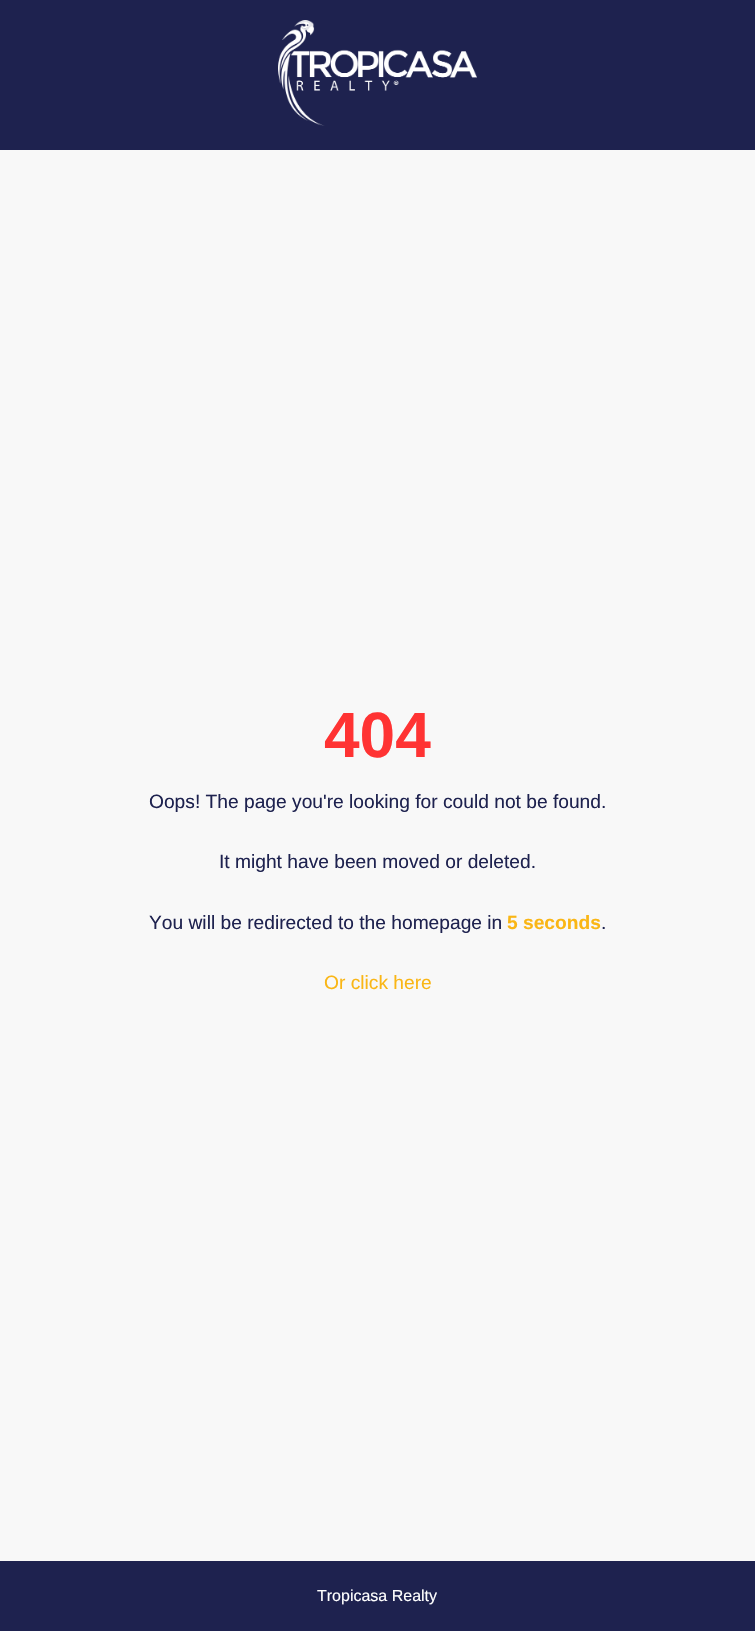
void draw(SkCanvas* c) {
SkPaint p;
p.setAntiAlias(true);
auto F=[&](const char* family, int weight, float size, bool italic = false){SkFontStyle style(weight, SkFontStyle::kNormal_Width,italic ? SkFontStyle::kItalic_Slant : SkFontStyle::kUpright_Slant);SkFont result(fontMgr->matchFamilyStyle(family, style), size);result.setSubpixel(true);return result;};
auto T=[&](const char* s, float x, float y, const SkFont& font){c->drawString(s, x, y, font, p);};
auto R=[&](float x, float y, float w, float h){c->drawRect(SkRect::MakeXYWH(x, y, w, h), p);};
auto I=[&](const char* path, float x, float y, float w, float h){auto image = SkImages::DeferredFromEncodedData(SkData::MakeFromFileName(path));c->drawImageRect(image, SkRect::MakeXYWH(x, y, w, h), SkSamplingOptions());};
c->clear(0xfff8f8f8);
p.setColor(0xff1e224f);
R(0,0,755,150);
I("1.png",278,20,199,106);
auto f1 = F("Liberation Sans",700,64);
p.setColor(0xffff3333);
T("404",324,757,f1);
auto f2 = F("Liberation Sans",400,19.2);
p.setColor(0xff1e224f);
T("Oops! The page you're looking for could not be found.",149,808,f2);
T("It might have been moved or deleted.",219,868,f2);
T("You will be redirected to the homepage in",149,929,f2);
auto f3 = F("Liberation Sans",700,19.2);
p.setColor(0xfffab615);
T("5 seconds",507,929,f3);
p.setColor(0xff1e224f);
T(".",601,929,f2);
p.setColor(0xfffab615);
T("Or click here",324,989,f2);
p.setColor(0xff1e224f);
R(0,1561,755,70);
auto f4 = F("Liberation Sans",400,16);
p.setColor(0xffffffff);
T("Tropicasa Realty",317,1601,f4);
}
